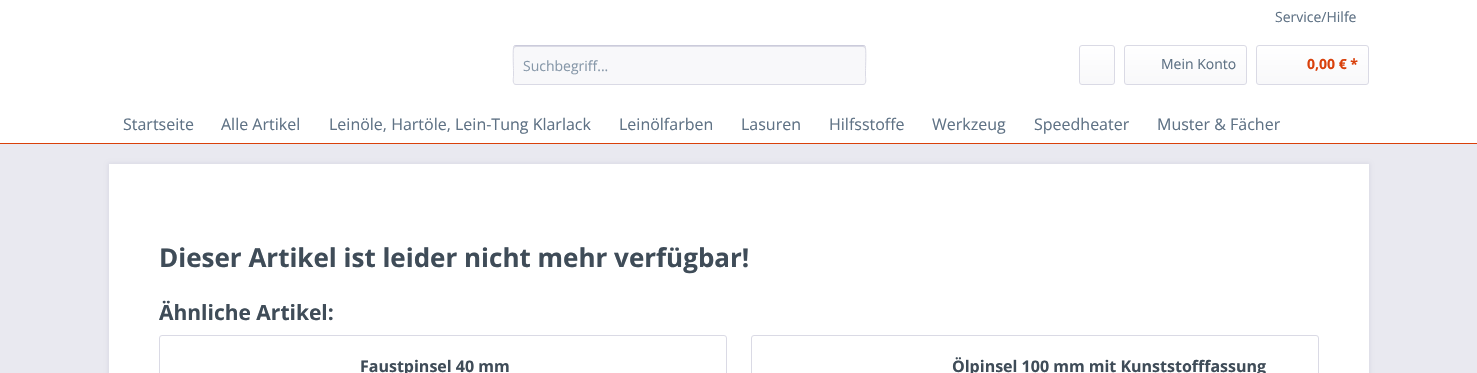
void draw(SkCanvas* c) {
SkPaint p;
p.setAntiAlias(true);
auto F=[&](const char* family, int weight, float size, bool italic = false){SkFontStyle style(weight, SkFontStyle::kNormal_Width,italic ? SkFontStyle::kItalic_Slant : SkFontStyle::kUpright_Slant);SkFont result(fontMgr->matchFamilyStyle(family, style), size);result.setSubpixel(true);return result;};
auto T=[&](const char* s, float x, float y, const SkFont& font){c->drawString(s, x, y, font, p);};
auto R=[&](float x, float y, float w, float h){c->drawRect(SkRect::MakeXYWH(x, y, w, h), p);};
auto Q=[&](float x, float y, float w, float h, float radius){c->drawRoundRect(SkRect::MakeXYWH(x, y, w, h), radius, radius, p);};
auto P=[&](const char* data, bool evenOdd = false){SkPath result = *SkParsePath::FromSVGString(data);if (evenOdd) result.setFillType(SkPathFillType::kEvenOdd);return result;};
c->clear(0xffe9e9f0);
p.setColor(0xffffffff);
R(0,0,1477,143);
auto f1 = F("Open Sans",400,14);
p.setColor(0xff5f7285);
T("Service/Hilfe",1275,22,f1);
p.setColor(0xfff8f8fa);
Q(513,45,353,40,3);
p.setColor(0xffdadae5);
c->drawPath(P("M516 47h347c1 0 2 1 2 2c0-1 0-3-2-3h-347c-2 0-2 2-2 3c0-1 1-2 2-2z"),p);
p.setStroke(true);
p.setStrokeWidth(1);
p.setColor(0xffcbcbdb);
c->drawPath(P("M514 46l2-.5h347l2 .5"),p);
p.setColor(0xffdadae5);
c->drawPath(P("M865 46c1.5 2 .5 21 .5 24.5v6c0 1.5 1.5 8-2.5 8h-347c-4 0-2.5-6.5-2.5-8v-6c0-3.5-1-22.5 .5-24.5"),p);
p.setStroke(false);
p.setColor(0xff8798a9);
T("Suchbegriff...",523,71,f1);
{
const SkColor colors[] = {0xffffffff,0xfff8f8fa};
const float stops[] = {0,1};
const SkPoint ends[] = {{1097,46}, {1097,84}};
p.setShader(SkGradientShader::MakeLinear(ends, colors, stops, 2, SkTileMode::kClamp));
p.setAlpha(255);
}
Q(1080,46,34,38,2);
p.setStroke(true);
p.setShader(nullptr);
p.setColor(0xffdadae5);
c->drawRoundRect(SkRect::MakeXYWH(1079.5,45.5,35,39),2.5,2.5,p);
p.setStroke(false);
{
const SkColor colors[] = {0xffffffff,0xfff8f8fa};
const float stops[] = {0,1};
const SkPoint ends[] = {{1186,46}, {1186,84}};
p.setShader(SkGradientShader::MakeLinear(ends, colors, stops, 2, SkTileMode::kClamp));
p.setAlpha(255);
}
Q(1125,46,121,38,2);
p.setStroke(true);
p.setShader(nullptr);
p.setColor(0xffdadae5);
c->drawRoundRect(SkRect::MakeXYWH(1124.5,45.5,122,39),2.5,2.5,p);
p.setStroke(false);
p.setColor(0xff5f7285);
T("Mein Konto",1161,69,f1);
{
const SkColor colors[] = {0xffffffff,0xfff8f8fa};
const float stops[] = {0,1};
const SkPoint ends[] = {{1313,46}, {1313,84}};
p.setShader(SkGradientShader::MakeLinear(ends, colors, stops, 2, SkTileMode::kClamp));
p.setAlpha(255);
}
Q(1257,46,111,38,2);
p.setStroke(true);
p.setShader(nullptr);
p.setColor(0xffdadae5);
c->drawRoundRect(SkRect::MakeXYWH(1256.5,45.5,112,39),2.5,2.5,p);
auto f2 = F("Open Sans",700,14);
p.setStroke(false);
p.setColor(0xffd9400b);
T("0,00 € *",1307,69,f2);
R(0,143,1477,1);
auto f3 = F("Open Sans",400,16);
p.setColor(0xff5f7285);
T("Startseite",123,130,f3);
T("Alle Artikel",221,130,f3);
T("Leinöle, Hartöle, Lein-Tung Klarlack",329,130,f3);
T("Leinölfarben",619,130,f3);
T("Lasuren",741,130,f3);
T("Hilfsstoffe",829,130,f3);
T("Werkzeug",932,130,f3);
T("Speedheater",1034,130,f3);
T("Muster & Fächer",1157,130,f3);
p.setColor(0xffdadae5);
p.setMaskFilter(SkMaskFilter::MakeBlur(kNormal_SkBlurStyle, 2));
c->drawRect(SkRect::MakeXYWH(108,163,1262,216),p);
p.setMaskFilter(nullptr);
p.setColor(0xffffffff);
R(109,164,1260,209);
auto f4 = F("Open Sans",700,26);
p.setColor(0xff3f4c58);
T("Dieser Artikel ist leider nicht mehr verfügbar!",159,267,f4);
auto f5 = F("Open Sans",700,21);
T("Ähnliche Artikel:",159,320,f5);
p.setStroke(true);
p.setColor(0xffdadae5);
c->drawRoundRect(SkRect::MakeXYWH(159.5,335.5,567,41),2.5,2.5,p);
auto f6 = F("Open Sans",700,16);
p.setStroke(false);
p.setColor(0xff3f4c58);
T("Faustpinsel 40 mm",360,372,f6);
p.setStroke(true);
p.setColor(0xffdadae5);
c->drawRoundRect(SkRect::MakeXYWH(751.5,335.5,567,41),2.5,2.5,p);
p.setStroke(false);
p.setColor(0xff3f4c58);
T("Ölpinsel 100 mm mit Kunststofffassung",952,372,f6);
}
